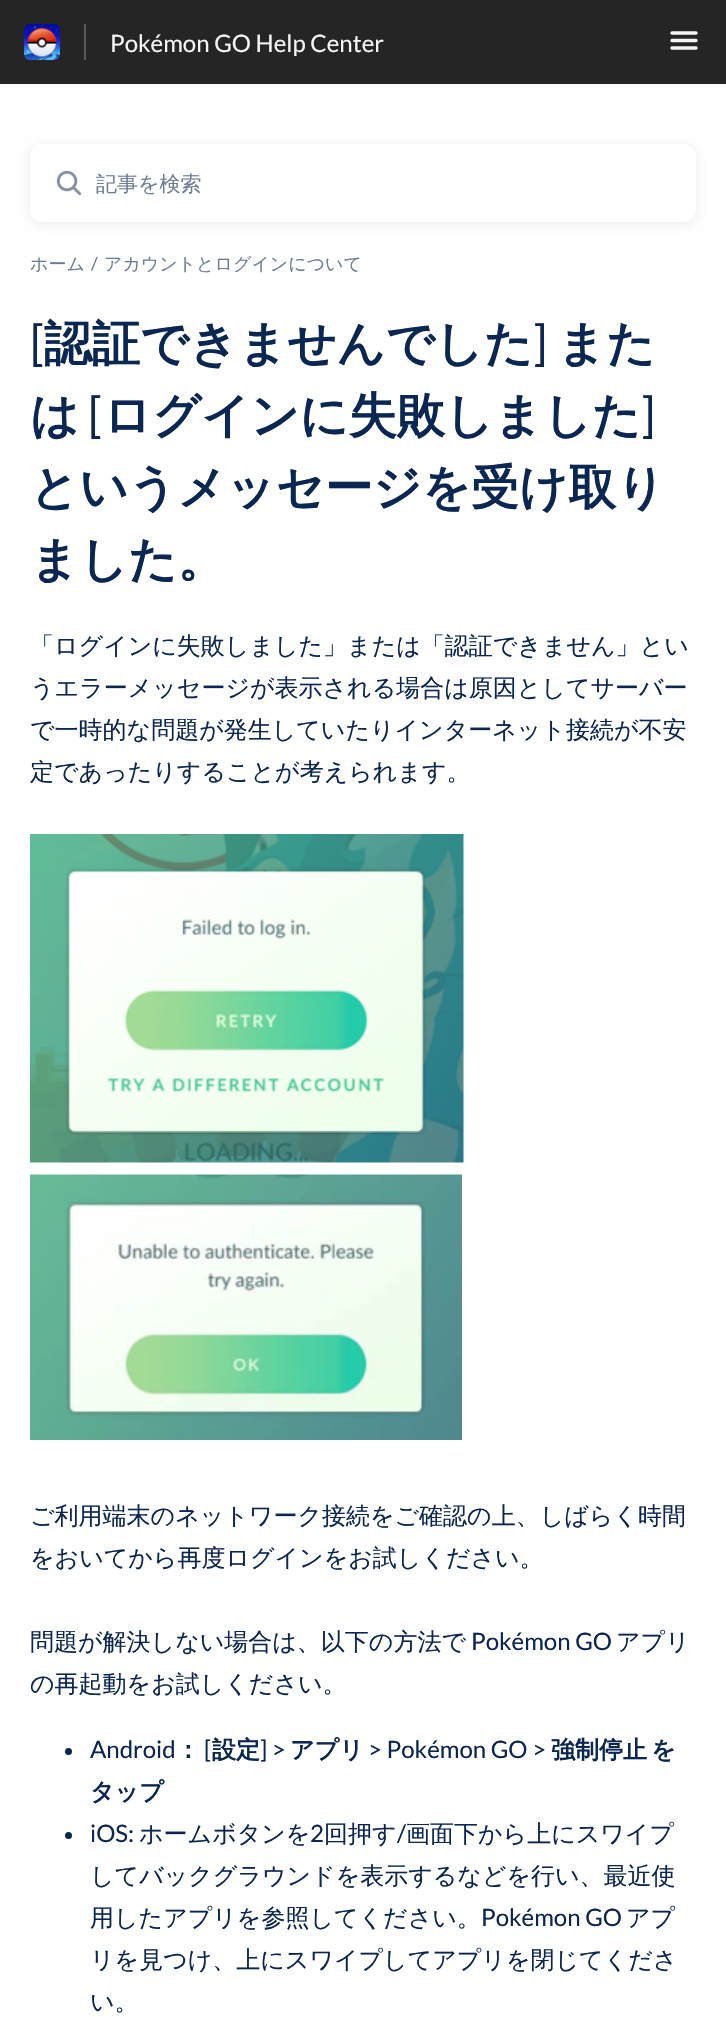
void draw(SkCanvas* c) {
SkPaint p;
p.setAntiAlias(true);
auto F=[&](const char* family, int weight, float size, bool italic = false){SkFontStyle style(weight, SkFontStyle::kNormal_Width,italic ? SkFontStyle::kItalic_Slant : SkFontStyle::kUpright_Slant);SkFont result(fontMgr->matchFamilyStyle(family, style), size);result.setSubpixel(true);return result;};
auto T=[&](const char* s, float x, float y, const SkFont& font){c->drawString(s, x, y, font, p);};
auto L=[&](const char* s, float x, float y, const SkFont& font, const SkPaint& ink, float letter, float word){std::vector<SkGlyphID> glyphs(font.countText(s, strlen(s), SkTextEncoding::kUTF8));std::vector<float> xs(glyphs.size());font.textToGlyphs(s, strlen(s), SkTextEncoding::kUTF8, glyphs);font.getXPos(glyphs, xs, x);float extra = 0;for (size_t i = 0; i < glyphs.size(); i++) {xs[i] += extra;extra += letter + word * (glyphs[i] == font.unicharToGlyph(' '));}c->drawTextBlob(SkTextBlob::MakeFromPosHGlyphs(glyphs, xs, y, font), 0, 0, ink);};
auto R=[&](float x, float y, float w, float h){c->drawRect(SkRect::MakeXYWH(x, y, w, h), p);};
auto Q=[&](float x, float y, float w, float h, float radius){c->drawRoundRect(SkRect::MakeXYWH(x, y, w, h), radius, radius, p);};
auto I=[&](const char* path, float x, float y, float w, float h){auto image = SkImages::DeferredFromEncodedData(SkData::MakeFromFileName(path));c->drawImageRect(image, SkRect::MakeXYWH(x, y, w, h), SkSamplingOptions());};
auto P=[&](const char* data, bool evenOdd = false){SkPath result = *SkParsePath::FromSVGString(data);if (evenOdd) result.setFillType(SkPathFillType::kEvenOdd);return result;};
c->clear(0xffffffff);
p.setColor(0xff252525);
R(0,0,726,84);
p.setColor(0xff595959);
R(84,24,2,36);
I("1.png",24,24,36,36);
auto f1 = F("Lato",400,24);
p.setColor(0xfff3f4f4);
T("Pokémon GO Help Center",110,52,f1);
p.setStroke(true);
p.setStrokeWidth(3.4);
p.setStrokeCap(SkPaint::kRound_Cap);
c->drawPath(P("M672 33h24m-24 7.5h24m-24 7.5h24"),p);
p.setStroke(false);
p.setColor(0x14000000);
p.setMaskFilter(SkMaskFilter::MakeBlur(kNormal_SkBlurStyle, 6));
c->drawRoundRect(SkRect::MakeXYWH(30,146,666,78),12,12,p);
p.setMaskFilter(nullptr);
p.setColor(0xffffffff);
Q(30,144,666,78,12);
I("2.png",56,170,26,26);
auto f2 = F("WenQuanYi Zen Hei",500,21);
p.setColor(0xff6c7d97);
T("記事を検索",96,191,f2);
auto f3 = F("WenQuanYi Zen Hei",500,18);
T("ホーム",30,270,f3);
auto f4 = F("Lato",400,18);
T("/",91,270,f4);
T("アカウントとログインについて",104,270,f3);
auto f5 = F("Lato",400,48);
p.setColor(0xff0a2652);
T("[",30,360,f5);
auto f6 = F("WenQuanYi Zen Hei",700,48);
T("認証できませんでした",44,360,f6);
T("]",533,360,f5);
T("また",557,360,f6);
T("は",30,432,f6);
T("[",88,432,f5);
T("ログインに失敗しました",103,432,f6);
T("]",641,432,f5);
T("というメッセージを受け取り",30,504,f6);
T("ました。",30,576,f6);
auto f7 = F("WenQuanYi Zen Hei",500,24);
T("「ログインに失敗しました」または「認証できません」とい",30,654,f7);
T("うエラーメッセージが表示される場合は原因としてサーバー",30,696,f7);
T("で一時的な問題が発生していたりインターネット接続が不安",30,738,f7);
T("定であったりすることが考えられます。",30,780,f7);
I("3.png",30,834,434,329);
I("4.png",30,1174,432,266);
T("ご利用端末のネットワーク接続をご確認の上、しばらく時間",30,1524,f7);
T("をおいてから再度ログインをお試しください。",30,1566,f7);
T("問題が解決しない場合は、以下の方法で",30,1650,f7);
T("Pokémon GO",471,1650,f1);
T("アプリ",616,1650,f7);
T("の再起動をお試しください。",30,1692,f7);
c->drawCircle(68.5,1751.5,3.5,p);
T("Android",90,1758,f1);
auto f8 = F("WenQuanYi Zen Hei",700,24);
T("：",176,1758,f8);
T("[",204,1758,f1);
T("設定",212,1758,f8);
T("] >",260,1758,f1);
T("アプリ",290,1758,f8);
T("> Pokémon GO >",368,1758,f1);
L("強制停止 を",551,1758,f8,p,0,-3);
T("タップ",90,1800,f8);
c->drawCircle(68.5,1835.5,3.5,p);
T("iOS:",90,1842,f1);
T("ホームボタンを",139,1842,f7);
T("2",310,1842,f1);
T("回押す",324,1842,f7);
T("/",397,1842,f1);
T("画面下から上にスワイプ",406,1842,f7);
T("してバックグラウンドを表示するなどを行い、最近使",90,1884,f7);
T("用したアプリを参照してください。",90,1926,f7);
T("Pokémon GO",481,1926,f1);
T("アプ",626,1926,f7);
T("リを見つけ、上にスワイプしてアプリを閉じてくださ",90,1968,f7);
T("い。",90,2010,f7);
}
